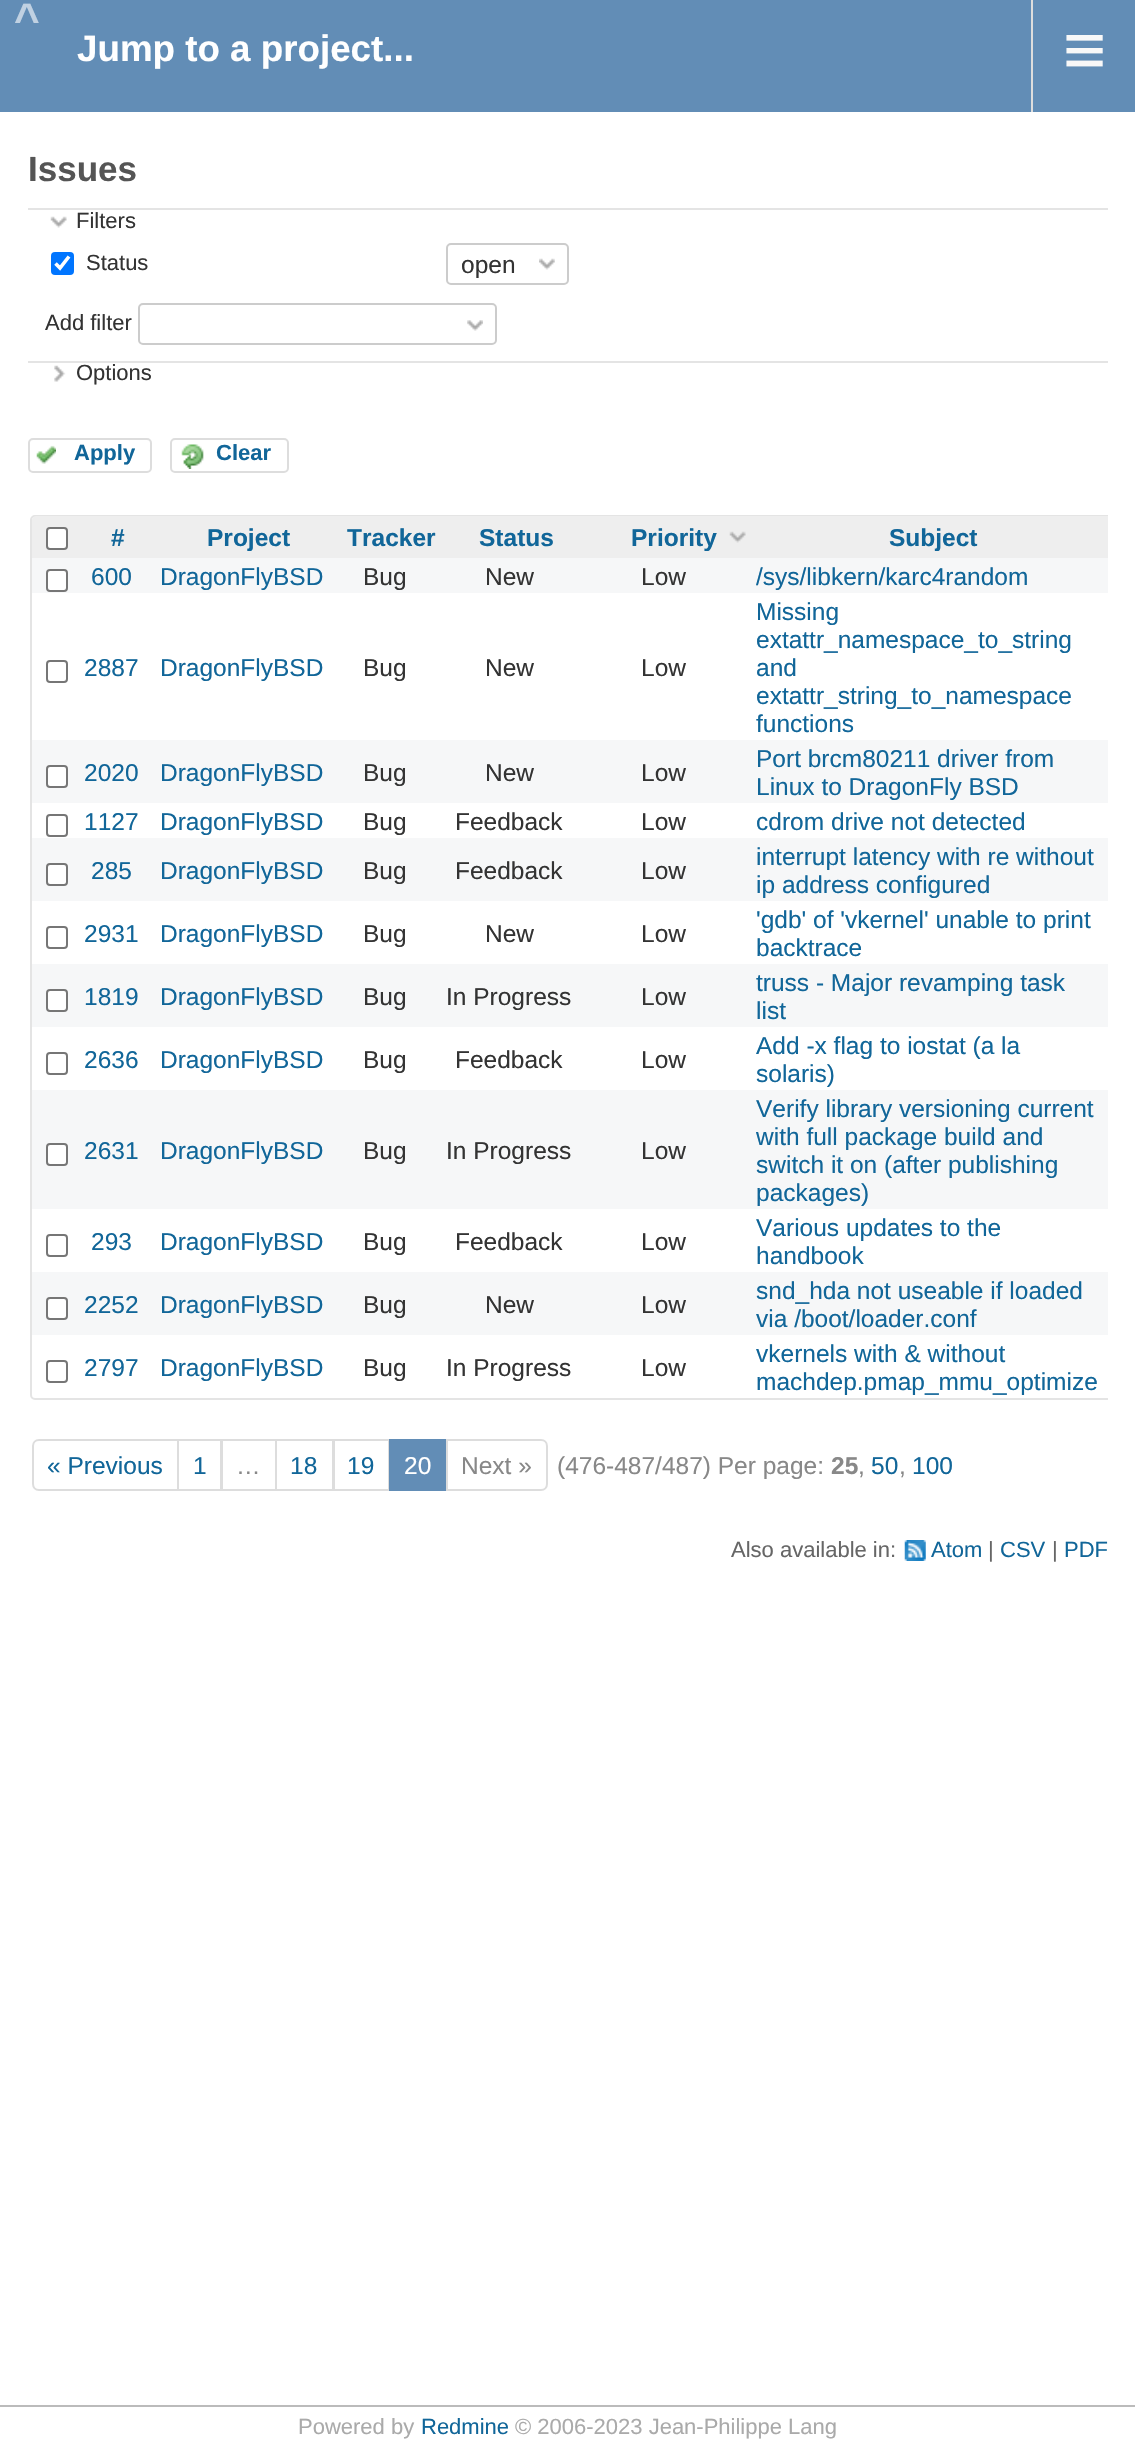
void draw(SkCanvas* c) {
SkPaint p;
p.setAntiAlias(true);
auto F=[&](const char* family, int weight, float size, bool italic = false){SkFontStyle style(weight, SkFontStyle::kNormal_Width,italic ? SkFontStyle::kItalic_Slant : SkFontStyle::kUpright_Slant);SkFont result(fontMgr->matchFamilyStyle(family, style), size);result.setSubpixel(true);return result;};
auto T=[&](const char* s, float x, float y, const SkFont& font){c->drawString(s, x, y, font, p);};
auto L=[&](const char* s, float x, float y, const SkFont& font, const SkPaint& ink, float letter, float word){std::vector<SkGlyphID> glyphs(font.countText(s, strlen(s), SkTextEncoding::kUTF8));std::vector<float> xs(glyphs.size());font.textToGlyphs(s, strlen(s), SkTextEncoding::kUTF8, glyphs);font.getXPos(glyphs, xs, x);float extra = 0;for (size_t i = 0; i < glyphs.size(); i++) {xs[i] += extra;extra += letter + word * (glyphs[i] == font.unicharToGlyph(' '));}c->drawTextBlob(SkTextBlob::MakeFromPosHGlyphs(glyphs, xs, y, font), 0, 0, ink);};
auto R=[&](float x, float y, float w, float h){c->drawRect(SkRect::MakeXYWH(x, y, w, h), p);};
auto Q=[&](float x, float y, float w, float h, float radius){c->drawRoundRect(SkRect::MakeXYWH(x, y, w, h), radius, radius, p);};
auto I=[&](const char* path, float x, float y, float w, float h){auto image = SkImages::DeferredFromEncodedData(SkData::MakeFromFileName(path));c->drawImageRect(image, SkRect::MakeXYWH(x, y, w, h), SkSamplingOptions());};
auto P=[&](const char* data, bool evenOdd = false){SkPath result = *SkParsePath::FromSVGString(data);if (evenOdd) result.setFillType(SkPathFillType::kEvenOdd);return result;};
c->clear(0xffffffff);
p.setColor(0xff628db6);
R(0,0,1135,112);
auto f1 = F("Liberation Sans",700,44);
p.setColor(0xffc0d1e2);
L("^",14,34,f1,p,6,0);
auto f2 = F("Liberation Sans",700,36.75);
p.setColor(0xffffffff);
T("Jump to a project...",77,61,f2);
p.setColor(0xffdddddd);
R(1031,0,2,112);
auto f3 = F("Liberation Sans",400,74);
p.setColor(0xfff8f8f8);
T("≡",1063,75,f3);
auto f4 = F("Liberation Sans",700,35);
p.setColor(0xff555555);
T("Issues",28,181,f4);
p.setColor(0xffe4e4e4);
R(28,208,1080,2);
I("1.png",50,216,17,12);
auto f5 = F("Liberation Sans",400,22);
p.setColor(0xff333333);
T("Filters",76,228,f5);
p.setColor(0xff0075ff);
Q(51,252,23,23,4);
p.setStroke(true);
p.setStrokeWidth(3.6);
p.setColor(0xffffffff);
c->drawPath(P("M55.5 263.5l4.5 4.5l9-11.5"),p);
p.setStroke(false);
p.setColor(0xff333333);
T("Status",86,270,f5);
I("2.png",539,258,16,12);
p.setStroke(true);
p.setStrokeWidth(2);
p.setColor(0xffcccccc);
c->drawRoundRect(SkRect::MakeXYWH(447,244,121,40),4,4,p);
auto f6 = F("Liberation Sans",400,24.5);
p.setStroke(false);
p.setColor(0xff333333);
T("open",461,273,f6);
T("Add filter",45,330,f5);
I("3.png",467,320,16,11);
p.setStroke(true);
p.setColor(0xffcccccc);
c->drawRoundRect(SkRect::MakeXYWH(139,304,357,40),4,4,p);
p.setStroke(false);
p.setColor(0xffe4e4e4);
R(28,361,1080,2);
I("4.png",54,365,12,17);
p.setColor(0xff333333);
T("Options",76,380,f5);
I("5.png",36,445,20,19);
p.setStroke(true);
p.setColor(0xffdddddd);
c->drawRoundRect(SkRect::MakeXYWH(29,439,122,33),4,4,p);
auto f7 = F("Liberation Sans",700,22);
p.setStroke(false);
p.setColor(0xff116699);
T("Apply",74,460,f7);
I("6.png",181,444,23,25);
p.setStroke(true);
p.setColor(0xffdddddd);
c->drawRoundRect(SkRect::MakeXYWH(171,439,117,33),4,4,p);
p.setStroke(false);
p.setColor(0xff116699);
T("Clear",216,460,f7);
c->save();
c->clipRect(SkRect::MakeXYWH(28,513,1080,896));
p.setStroke(true);
p.setColor(0xffe4e4e4);
c->drawRoundRect(SkRect::MakeXYWH(31,516,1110,883),4,4,p);
c->restore();
p.setStroke(false);
p.setColor(0xffeeeeee);
c->drawPath(P("M36 516h45v42h-49v-38c0-2 2-4 4-4z"),p);
p.setColor(0xffffffff);
c->drawRoundRect(SkRect::MakeXYWH(47,528,20,21),3,3,p);
p.setStroke(true);
p.setColor(0xff767676);
c->drawRoundRect(SkRect::MakeXYWH(47,528,20,21),3,3,p);
p.setStroke(false);
p.setColor(0xffeeeeee);
R(81,516,1027,42);
auto f8 = F("Liberation Sans",700,24.5);
p.setColor(0xff116699);
T("#",111,546,f8);
T("Project",207,546,f8);
T("Tracker",347,546,f8);
T("Status",479,546,f8);
T("Priority",631,546,f8);
I("7.png",729,531,17,12);
T("Subject",889,546,f8);
p.setColor(0xfff6f7f8);
R(32,558,1076,35);
p.setColor(0xffffffff);
c->drawRoundRect(SkRect::MakeXYWH(47,570,20,21),3,3,p);
p.setStroke(true);
p.setColor(0xff767676);
c->drawRoundRect(SkRect::MakeXYWH(47,570,20,21),3,3,p);
p.setStroke(false);
p.setColor(0xff116699);
T("600",91,585,f6);
T("DragonFlyBSD",160,585,f6);
p.setColor(0xff333333);
T("Bug",363,585,f6);
T("New",485,585,f6);
T("Low",641,585,f6);
p.setColor(0xff116699);
T("/sys/libkern/karc4random",756,585,f6);
p.setStroke(true);
p.setColor(0xff767676);
c->drawRoundRect(SkRect::MakeXYWH(47,661,20,21),3,3,p);
p.setStroke(false);
p.setColor(0xff116699);
T("2887",84,676,f6);
T("DragonFlyBSD",160,676,f6);
p.setColor(0xff333333);
T("Bug",363,676,f6);
T("New",485,676,f6);
T("Low",641,676,f6);
p.setColor(0xff116699);
T("Missing",756,620,f6);
T("extattr_namespace_to_string",756,648,f6);
T("and",756,676,f6);
T("extattr_string_to_namespace",756,704,f6);
T("functions",756,732,f6);
p.setColor(0xfff6f7f8);
R(32,740,1076,63);
p.setColor(0xffffffff);
c->drawRoundRect(SkRect::MakeXYWH(47,766,20,21),3,3,p);
p.setStroke(true);
p.setColor(0xff767676);
c->drawRoundRect(SkRect::MakeXYWH(47,766,20,21),3,3,p);
p.setStroke(false);
p.setColor(0xff116699);
T("2020",84,781,f6);
T("DragonFlyBSD",160,781,f6);
p.setColor(0xff333333);
T("Bug",363,781,f6);
T("New",485,781,f6);
T("Low",641,781,f6);
p.setColor(0xff116699);
T("Port brcm80211 driver from",756,767,f6);
T("Linux to DragonFly BSD",756,795,f6);
p.setStroke(true);
p.setColor(0xff767676);
c->drawRoundRect(SkRect::MakeXYWH(47,815,20,21),3,3,p);
p.setStroke(false);
p.setColor(0xff116699);
T("1127",84,830,f6);
T("DragonFlyBSD",160,830,f6);
p.setColor(0xff333333);
T("Bug",363,830,f6);
T("Feedback",455,830,f6);
T("Low",641,830,f6);
p.setColor(0xff116699);
T("cdrom drive not detected",756,830,f6);
p.setColor(0xfff6f7f8);
R(32,838,1076,63);
p.setColor(0xffffffff);
c->drawRoundRect(SkRect::MakeXYWH(47,864,20,21),3,3,p);
p.setStroke(true);
p.setColor(0xff767676);
c->drawRoundRect(SkRect::MakeXYWH(47,864,20,21),3,3,p);
p.setStroke(false);
p.setColor(0xff116699);
T("285",91,879,f6);
T("DragonFlyBSD",160,879,f6);
p.setColor(0xff333333);
T("Bug",363,879,f6);
T("Feedback",455,879,f6);
T("Low",641,879,f6);
p.setColor(0xff116699);
T("interrupt latency with re without",756,865,f6);
T("ip address configured",756,893,f6);
p.setStroke(true);
p.setColor(0xff767676);
c->drawRoundRect(SkRect::MakeXYWH(47,927,20,21),3,3,p);
p.setStroke(false);
p.setColor(0xff116699);
T("2931",84,942,f6);
T("DragonFlyBSD",160,942,f6);
p.setColor(0xff333333);
T("Bug",363,942,f6);
T("New",485,942,f6);
T("Low",641,942,f6);
p.setColor(0xff116699);
T("'gdb' of 'vkernel' unable to print",756,928,f6);
T("backtrace",756,956,f6);
p.setColor(0xfff6f7f8);
R(32,964,1076,63);
p.setColor(0xffffffff);
c->drawRoundRect(SkRect::MakeXYWH(47,990,20,21),3,3,p);
p.setStroke(true);
p.setColor(0xff767676);
c->drawRoundRect(SkRect::MakeXYWH(47,990,20,21),3,3,p);
p.setStroke(false);
p.setColor(0xff116699);
T("1819",84,1005,f6);
T("DragonFlyBSD",160,1005,f6);
p.setColor(0xff333333);
T("Bug",363,1005,f6);
T("In Progress",446,1005,f6);
T("Low",641,1005,f6);
p.setColor(0xff116699);
T("truss - Major revamping task",756,991,f6);
T("list",756,1019,f6);
p.setStroke(true);
p.setColor(0xff767676);
c->drawRoundRect(SkRect::MakeXYWH(47,1053,20,21),3,3,p);
p.setStroke(false);
p.setColor(0xff116699);
T("2636",84,1068,f6);
T("DragonFlyBSD",160,1068,f6);
p.setColor(0xff333333);
T("Bug",363,1068,f6);
T("Feedback",455,1068,f6);
T("Low",641,1068,f6);
p.setColor(0xff116699);
T("Add -x flag to iostat (a la",756,1054,f6);
T("solaris)",756,1082,f6);
p.setColor(0xfff6f7f8);
R(32,1090,1076,119);
p.setColor(0xffffffff);
c->drawRoundRect(SkRect::MakeXYWH(47,1144,20,21),3,3,p);
p.setStroke(true);
p.setColor(0xff767676);
c->drawRoundRect(SkRect::MakeXYWH(47,1144,20,21),3,3,p);
p.setStroke(false);
p.setColor(0xff116699);
T("2631",84,1159,f6);
T("DragonFlyBSD",160,1159,f6);
p.setColor(0xff333333);
T("Bug",363,1159,f6);
T("In Progress",446,1159,f6);
T("Low",641,1159,f6);
p.setColor(0xff116699);
T("Verify library versioning current",756,1117,f6);
T("with full package build and",756,1145,f6);
T("switch it on (after publishing",756,1173,f6);
T("packages)",756,1201,f6);
p.setStroke(true);
p.setColor(0xff767676);
c->drawRoundRect(SkRect::MakeXYWH(47,1235,20,21),3,3,p);
p.setStroke(false);
p.setColor(0xff116699);
T("293",91,1250,f6);
T("DragonFlyBSD",160,1250,f6);
p.setColor(0xff333333);
T("Bug",363,1250,f6);
T("Feedback",455,1250,f6);
T("Low",641,1250,f6);
p.setColor(0xff116699);
T("Various updates to the",756,1236,f6);
T("handbook",756,1264,f6);
p.setColor(0xfff6f7f8);
R(32,1272,1076,63);
p.setColor(0xffffffff);
c->drawRoundRect(SkRect::MakeXYWH(47,1298,20,21),3,3,p);
p.setStroke(true);
p.setColor(0xff767676);
c->drawRoundRect(SkRect::MakeXYWH(47,1298,20,21),3,3,p);
p.setStroke(false);
p.setColor(0xff116699);
T("2252",84,1313,f6);
T("DragonFlyBSD",160,1313,f6);
p.setColor(0xff333333);
T("Bug",363,1313,f6);
T("New",485,1313,f6);
T("Low",641,1313,f6);
p.setColor(0xff116699);
T("snd_hda not useable if loaded",756,1299,f6);
T("via /boot/loader.conf",756,1327,f6);
p.setStroke(true);
p.setColor(0xff767676);
c->drawRoundRect(SkRect::MakeXYWH(47,1361,20,21),3,3,p);
p.setStroke(false);
p.setColor(0xff116699);
T("2797",84,1376,f6);
T("DragonFlyBSD",160,1376,f6);
p.setColor(0xff333333);
T("Bug",363,1376,f6);
T("In Progress",446,1376,f6);
T("Low",641,1376,f6);
p.setColor(0xff116699);
T("vkernels with & without",756,1362,f6);
T("machdep.pmap_mmu_optimize",756,1390,f6);
p.setStroke(true);
p.setColor(0xffdddddd);
c->drawPath(P("M39 1440h139v50h-139c-3.5 0-6-2.5-6-6v-38c0-3.5 2.5-6 6-6z"),p);
p.setStroke(false);
p.setColor(0xff116699);
T("« Previous",47,1474,f6);
p.setStroke(true);
p.setColor(0xffdddddd);
c->drawRect(SkRect::MakeXYWH(178,1440,43,50),p);
p.setStroke(false);
p.setColor(0xff116699);
T("1",193,1474,f6);
p.setStroke(true);
p.setColor(0xffdddddd);
c->drawRect(SkRect::MakeXYWH(222,1440,54,50),p);
p.setStroke(false);
p.setColor(0xff888888);
T("…",236,1474,f6);
p.setStroke(true);
p.setColor(0xffdddddd);
c->drawRect(SkRect::MakeXYWH(276,1440,57,50),p);
p.setStroke(false);
p.setColor(0xff116699);
T("18",290,1474,f6);
p.setStroke(true);
p.setColor(0xffdddddd);
c->drawRect(SkRect::MakeXYWH(334,1440,55,50),p);
p.setStroke(false);
p.setColor(0xff116699);
T("19",347,1474,f6);
p.setColor(0xff628db6);
R(389,1439,57,52);
p.setColor(0xffffffff);
T("20",404,1474,f6);
p.setStroke(true);
p.setColor(0xffdddddd);
c->drawPath(P("M447 1440h94c3.5 0 6 2.5 6 6v38c0 3.5-2.5 6-6 6h-94z"),p);
p.setStroke(false);
p.setColor(0xff888888);
T("Next »",461,1474,f6);
T("(476-487/487) Per page:",557,1474,f6);
T("25",831,1474,f8);
T(",",858,1474,f6);
p.setColor(0xff116699);
T("50",871,1474,f6);
p.setColor(0xff888888);
T(",",899,1474,f6);
p.setColor(0xff116699);
T("100",912,1474,f6);
p.setColor(0xff666666);
T("Also available in:",731,1557,f5);
I("8.png",904,1540,22,21);
p.setColor(0xff116699);
T("Atom",931,1557,f5);
p.setColor(0xff666666);
T("|",988,1557,f5);
p.setColor(0xff116699);
T("CSV",1000,1557,f5);
p.setColor(0xff666666);
T("|",1052,1557,f5);
p.setColor(0xff116699);
T("PDF",1064,1557,f5);
p.setColor(0xffbbbbbb);
R(0,2405,1135,2);
p.setColor(0xffaaaaaa);
T("Powered by",298,2434,f5);
p.setColor(0xff116699);
T("Redmine",421,2434,f5);
p.setColor(0xffaaaaaa);
T("© 2006-2023 Jean-Philippe Lang",515,2434,f5);
}
